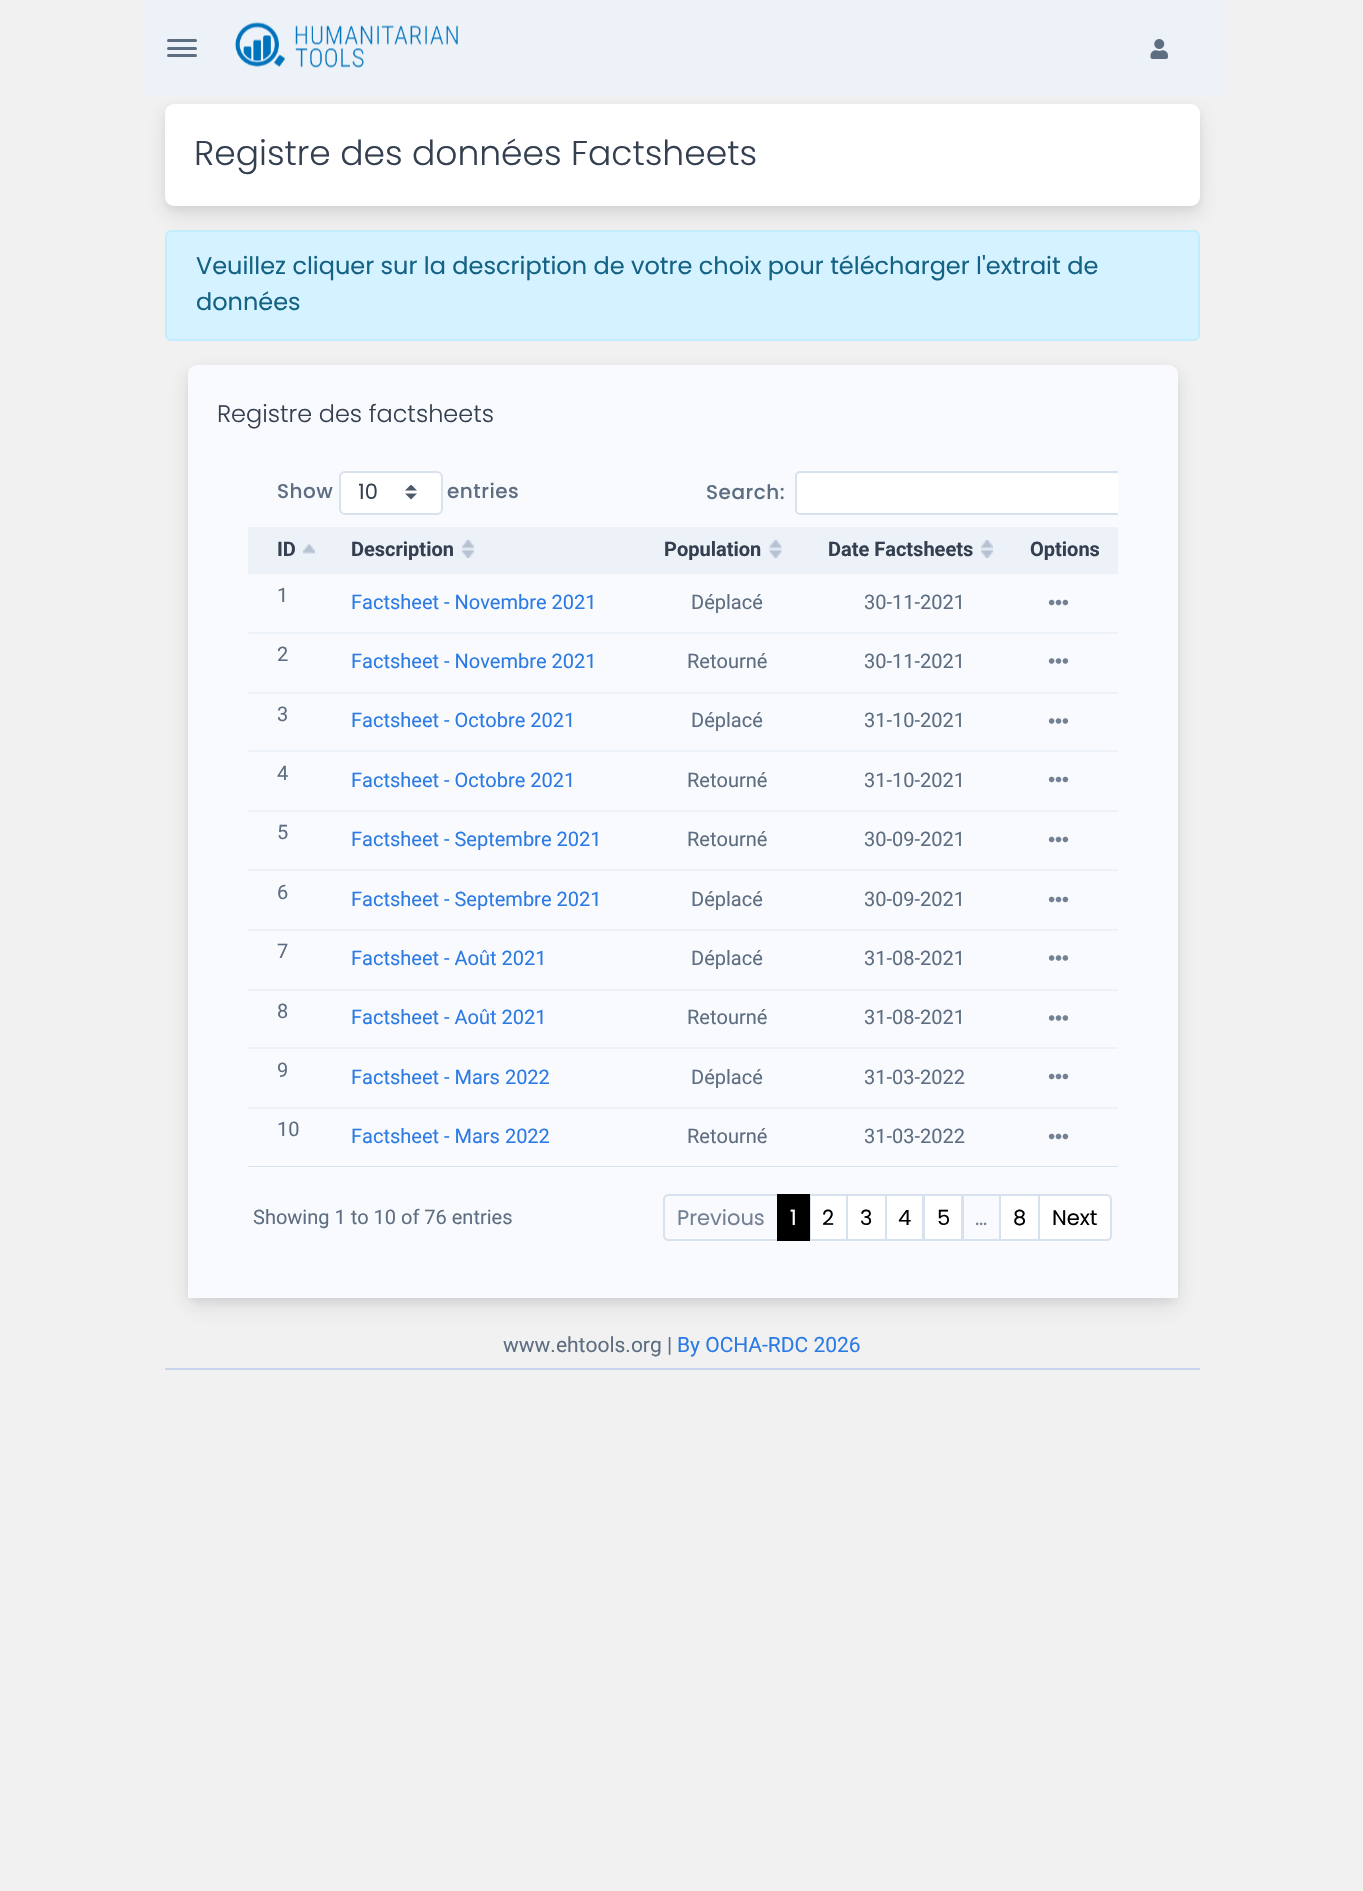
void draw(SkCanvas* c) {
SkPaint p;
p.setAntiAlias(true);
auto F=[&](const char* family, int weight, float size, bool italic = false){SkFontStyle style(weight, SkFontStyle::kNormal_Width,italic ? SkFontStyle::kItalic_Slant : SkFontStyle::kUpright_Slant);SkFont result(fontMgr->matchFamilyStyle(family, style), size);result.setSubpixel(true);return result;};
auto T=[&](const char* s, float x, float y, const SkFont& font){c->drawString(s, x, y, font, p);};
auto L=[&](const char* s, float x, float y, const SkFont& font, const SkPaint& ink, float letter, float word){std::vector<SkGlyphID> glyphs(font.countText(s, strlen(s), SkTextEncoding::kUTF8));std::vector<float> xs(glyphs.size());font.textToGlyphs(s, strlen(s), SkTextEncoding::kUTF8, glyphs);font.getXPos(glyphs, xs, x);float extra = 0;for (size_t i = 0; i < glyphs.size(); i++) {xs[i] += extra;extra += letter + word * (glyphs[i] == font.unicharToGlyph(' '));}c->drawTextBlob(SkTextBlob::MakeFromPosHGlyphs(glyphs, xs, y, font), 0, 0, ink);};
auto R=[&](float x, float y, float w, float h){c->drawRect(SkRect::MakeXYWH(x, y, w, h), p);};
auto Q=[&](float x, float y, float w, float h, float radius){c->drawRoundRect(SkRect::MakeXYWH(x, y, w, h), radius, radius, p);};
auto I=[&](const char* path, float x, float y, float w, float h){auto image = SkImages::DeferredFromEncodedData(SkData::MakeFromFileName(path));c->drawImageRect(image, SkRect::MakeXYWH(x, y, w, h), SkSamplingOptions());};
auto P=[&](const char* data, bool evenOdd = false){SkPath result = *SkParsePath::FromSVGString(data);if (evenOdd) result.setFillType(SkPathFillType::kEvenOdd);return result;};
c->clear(0xfff1f1f1);
p.setColor(0x12000000);
p.setMaskFilter(SkMaskFilter::MakeBlur(kNormal_SkBlurStyle, 4.5));
c->drawRoundRect(SkRect::MakeXYWH(165,108,1035,102),9,9,p);
p.setMaskFilter(nullptr);
p.setColor(0x1a414558);
p.setMaskFilter(SkMaskFilter::MakeBlur(kNormal_SkBlurStyle, 10.5));
c->drawRoundRect(SkRect::MakeXYWH(165,114,1035,102),9,9,p);
p.setMaskFilter(nullptr);
p.setColor(0xffedf2f9);
R(143,0,1080,96);
p.setColor(0xff5e6e82);
Q(167,39,30,3,1.5);
Q(167,47,30,3,1.5);
Q(167,54,30,3,1.5);
I("1.png",235,22,223,46);
I("2.png",1150,39,18,20);
p.setColor(0xffffffff);
Q(165,104,1035,102,9);
auto f1 = F("Poppins",300,34.5);
p.setColor(0xff344050);
T("Registre des données Factsheets",194,165,f1);
p.setColor(0xffd4f2ff);
c->drawRoundRect(SkRect::MakeXYWH(166,231,1033,109),5,5,p);
p.setStroke(true);
p.setStrokeWidth(2);
p.setColor(0xffc3ecfe);
c->drawRoundRect(SkRect::MakeXYWH(166,231,1033,109),5,5,p);
auto f2 = F("Poppins",400,24);
p.setStroke(false);
p.setColor(0xff146284);
T("Veuillez cliquer sur la description de votre choix pour télécharger l'extrait de",196,274,f2);
T("données",196,310,f2);
p.setColor(0x12000000);
p.setMaskFilter(SkMaskFilter::MakeBlur(kNormal_SkBlurStyle, 4.5));
c->drawRoundRect(SkRect::MakeXYWH(188,369,990,933),9,9,p);
p.setMaskFilter(nullptr);
p.setColor(0x1a414558);
p.setMaskFilter(SkMaskFilter::MakeBlur(kNormal_SkBlurStyle, 10.5));
c->drawRoundRect(SkRect::MakeXYWH(188,375,990,933),9,9,p);
p.setMaskFilter(nullptr);
p.setColor(0xfff9fafd);
c->drawPath(P("M197 365h972c5 0 9 4 9 9v924h-990v-924c0-5 4-9 9-9z"),p);
auto f3 = F("Poppins",300,24);
p.setColor(0xff344050);
T("Registre des factsheets",217,422,f3);
auto f4 = F("Poppins",500,20);
p.setColor(0xff5e6e82);
L("Show",277,498,f4,p,.5,0);
p.setColor(0xffffffff);
Q(339,471,104,44,6);
I("3.png",405,485,12,15);
p.setStroke(true);
p.setColor(0xffd8e2ef);
c->drawRoundRect(SkRect::MakeXYWH(340,472,102,42),5,5,p);
c->save();
c->clipRect(SkRect::MakeXYWH(359,477,34,32));
auto f5 = F("Poppins",400,21);
p.setStroke(false);
p.setColor(0xff344050);
T("10",358,499,f5);
c->restore();
p.setColor(0xff5e6e82);
L("entries",447,498,f4,p,.5,0);
L("Search:",706,499,f4,p,.5,0);
p.setColor(0xffffffff);
c->drawPath(P("M800 473h318v40h-318c-1.5 0-3-1.5-3-3v-34c0-1.5 1.5-3 3-3z"),p);
c->save();
c->clipRect(SkRect::MakeXYWH(248,471,870,773));
p.setStroke(true);
p.setColor(0xffd8e2ef);
c->drawRoundRect(SkRect::MakeXYWH(796,472,358,42),4,4,p);
c->restore();
p.setStroke(false);
R(248,1166,870,1);
p.setColor(0xffedf2f9);
R(248,527,870,45);
auto f6 = F("Roboto",700,20);
p.setColor(0xff344050);
T("ID",277,556,f6);
I("4.png",303,544,12,10);
T("Description",351,556,f6);
I("5.png",462,540,12,18);
T("Population",664,556,f6);
I("6.png",769,540,13,18);
T("Date Factsheets",828,556,f6);
I("7.png",981,540,12,18);
T("Options",1030,556,f6);
p.setColor(0xffedf2f9);
R(248,572,870,2);
I("8.png",1048,599,21,7);
auto f7 = F("Roboto",400,20);
p.setColor(0xff5e6e82);
T("1",277,602,f7);
p.setColor(0xff2c7be5);
T("Factsheet - Novembre 2021",351,609,f7);
p.setColor(0xff5e6e82);
T("Déplacé",691,609,f7);
T("30-11-2021",864,609,f7);
p.setColor(0xffedf2f9);
R(248,632,870,2);
I("9.png",1048,658,21,6);
p.setColor(0xff5e6e82);
T("2",277,661,f7);
p.setColor(0xff2c7be5);
T("Factsheet - Novembre 2021",351,668,f7);
p.setColor(0xff5e6e82);
T("Retourné",687,668,f7);
T("30-11-2021",864,668,f7);
p.setColor(0xffedf2f9);
R(248,692,870,2);
I("9.png",1048,718,21,6);
p.setColor(0xff5e6e82);
T("3",277,721,f7);
p.setColor(0xff2c7be5);
T("Factsheet - Octobre 2021",351,727,f7);
p.setColor(0xff5e6e82);
T("Déplacé",691,727,f7);
T("31-10-2021",864,727,f7);
p.setColor(0xffedf2f9);
R(248,750,870,2);
I("8.png",1048,776,21,7);
p.setColor(0xff5e6e82);
T("4",277,780,f7);
p.setColor(0xff2c7be5);
T("Factsheet - Octobre 2021",351,787,f7);
p.setColor(0xff5e6e82);
T("Retourné",687,787,f7);
T("31-10-2021",864,787,f7);
p.setColor(0xffedf2f9);
R(248,810,870,2);
I("8.png",1048,836,21,7);
p.setColor(0xff5e6e82);
T("5",277,839,f7);
p.setColor(0xff2c7be5);
T("Factsheet - Septembre 2021",351,846,f7);
p.setColor(0xff5e6e82);
T("Retourné",687,846,f7);
T("30-09-2021",864,846,f7);
p.setColor(0xffedf2f9);
R(248,869,870,2);
I("8.png",1048,896,21,7);
p.setColor(0xff5e6e82);
T("6",277,899,f7);
p.setColor(0xff2c7be5);
T("Factsheet - Septembre 2021",351,906,f7);
p.setColor(0xff5e6e82);
T("Déplacé",691,906,f7);
T("30-09-2021",864,906,f7);
p.setColor(0xffedf2f9);
R(248,929,870,2);
I("9.png",1048,955,21,6);
p.setColor(0xff5e6e82);
T("7",277,958,f7);
p.setColor(0xff2c7be5);
T("Factsheet - Août 2021",351,965,f7);
p.setColor(0xff5e6e82);
T("Déplacé",691,965,f7);
T("31-08-2021",864,965,f7);
p.setColor(0xffedf2f9);
R(248,989,870,2);
I("9.png",1048,1015,21,6);
p.setColor(0xff5e6e82);
T("8",277,1018,f7);
p.setColor(0xff2c7be5);
T("Factsheet - Août 2021",351,1024,f7);
p.setColor(0xff5e6e82);
T("Retourné",687,1024,f7);
T("31-08-2021",864,1024,f7);
p.setColor(0xffedf2f9);
R(248,1047,870,2);
I("8.png",1048,1073,21,7);
p.setColor(0xff5e6e82);
T("9",277,1077,f7);
p.setColor(0xff2c7be5);
T("Factsheet - Mars 2022",351,1084,f7);
p.setColor(0xff5e6e82);
T("Déplacé",691,1084,f7);
T("31-03-2022",864,1084,f7);
p.setColor(0xffedf2f9);
R(248,1107,870,2);
I("8.png",1048,1133,21,7);
p.setColor(0xff5e6e82);
T("10",277,1136,f7);
p.setColor(0xff2c7be5);
T("Factsheet - Mars 2022",351,1143,f7);
p.setColor(0xff5e6e82);
T("Retourné",687,1143,f7);
T("31-03-2022",864,1143,f7);
T("Showing 1 to 10 of 76 entries",253,1224,f7);
p.setStroke(true);
p.setColor(0xffd8e2ef);
c->drawPath(P("M668 1195h110v45h-110c-2 0-4-2-4-4v-37c0-2 2-4 4-4z"),p);
p.setStroke(false);
p.setColor(0xff748194);
T("Previous",677,1225,f5);
p.setColor(0xffffffff);
c->drawRect(SkRect::MakeXYWH(810,1195,37,45),p);
p.setStroke(true);
p.setColor(0xffd8e2ef);
c->drawRect(SkRect::MakeXYWH(810,1195,37,45),p);
p.setStroke(false);
p.setColor(0xff000000);
R(777,1194,33,47);
p.setColor(0xffffffff);
T("1",790,1225,f5);
p.setColor(0xff000000);
T("2",822,1225,f5);
p.setColor(0xffffffff);
c->drawRect(SkRect::MakeXYWH(847,1195,39,45),p);
p.setStroke(true);
p.setColor(0xffd8e2ef);
c->drawRect(SkRect::MakeXYWH(847,1195,39,45),p);
p.setStroke(false);
p.setColor(0xff000000);
T("3",860,1225,f5);
p.setColor(0xffffffff);
c->drawRect(SkRect::MakeXYWH(886,1195,37,45),p);
p.setStroke(true);
p.setColor(0xffd8e2ef);
c->drawRect(SkRect::MakeXYWH(886,1195,37,45),p);
p.setStroke(false);
p.setColor(0xff000000);
T("4",898,1225,f5);
p.setColor(0xffffffff);
c->drawRect(SkRect::MakeXYWH(924,1195,38,45),p);
p.setStroke(true);
p.setColor(0xffd8e2ef);
c->drawRect(SkRect::MakeXYWH(924,1195,38,45),p);
p.setStroke(false);
p.setColor(0xff000000);
T("5",937,1225,f5);
p.setStroke(true);
p.setColor(0xffd8e2ef);
c->drawRect(SkRect::MakeXYWH(963,1195,37,45),p);
p.setStroke(false);
p.setColor(0xff748194);
T("…",975,1225,f5);
p.setColor(0xffffffff);
c->drawRect(SkRect::MakeXYWH(1000,1195,39,45),p);
p.setStroke(true);
p.setColor(0xffd8e2ef);
c->drawRect(SkRect::MakeXYWH(1000,1195,39,45),p);
p.setStroke(false);
p.setColor(0xff000000);
T("8",1013,1225,f5);
p.setColor(0xffffffff);
c->drawPath(P("M1039 1195h68c2 0 4 2 4 4v37c0 2-2 4-4 4h-68z"),p);
p.setStroke(true);
p.setColor(0xffd8e2ef);
c->drawPath(P("M1039 1195h68c2 0 4 2 4 4v37c0 2-2 4-4 4h-68z"),p);
p.setStroke(false);
p.setColor(0xff000000);
T("Next",1052,1225,f5);
p.setColor(0xffc7d6ee);
R(165,1368,1035,2);
auto f8 = F("Roboto",400,21);
p.setColor(0xff5e6e82);
T("www.ehtools.org |",503,1352,f8);
p.setColor(0xff2c7be5);
T("By OCHA-RDC 2026",677,1352,f8);
}
